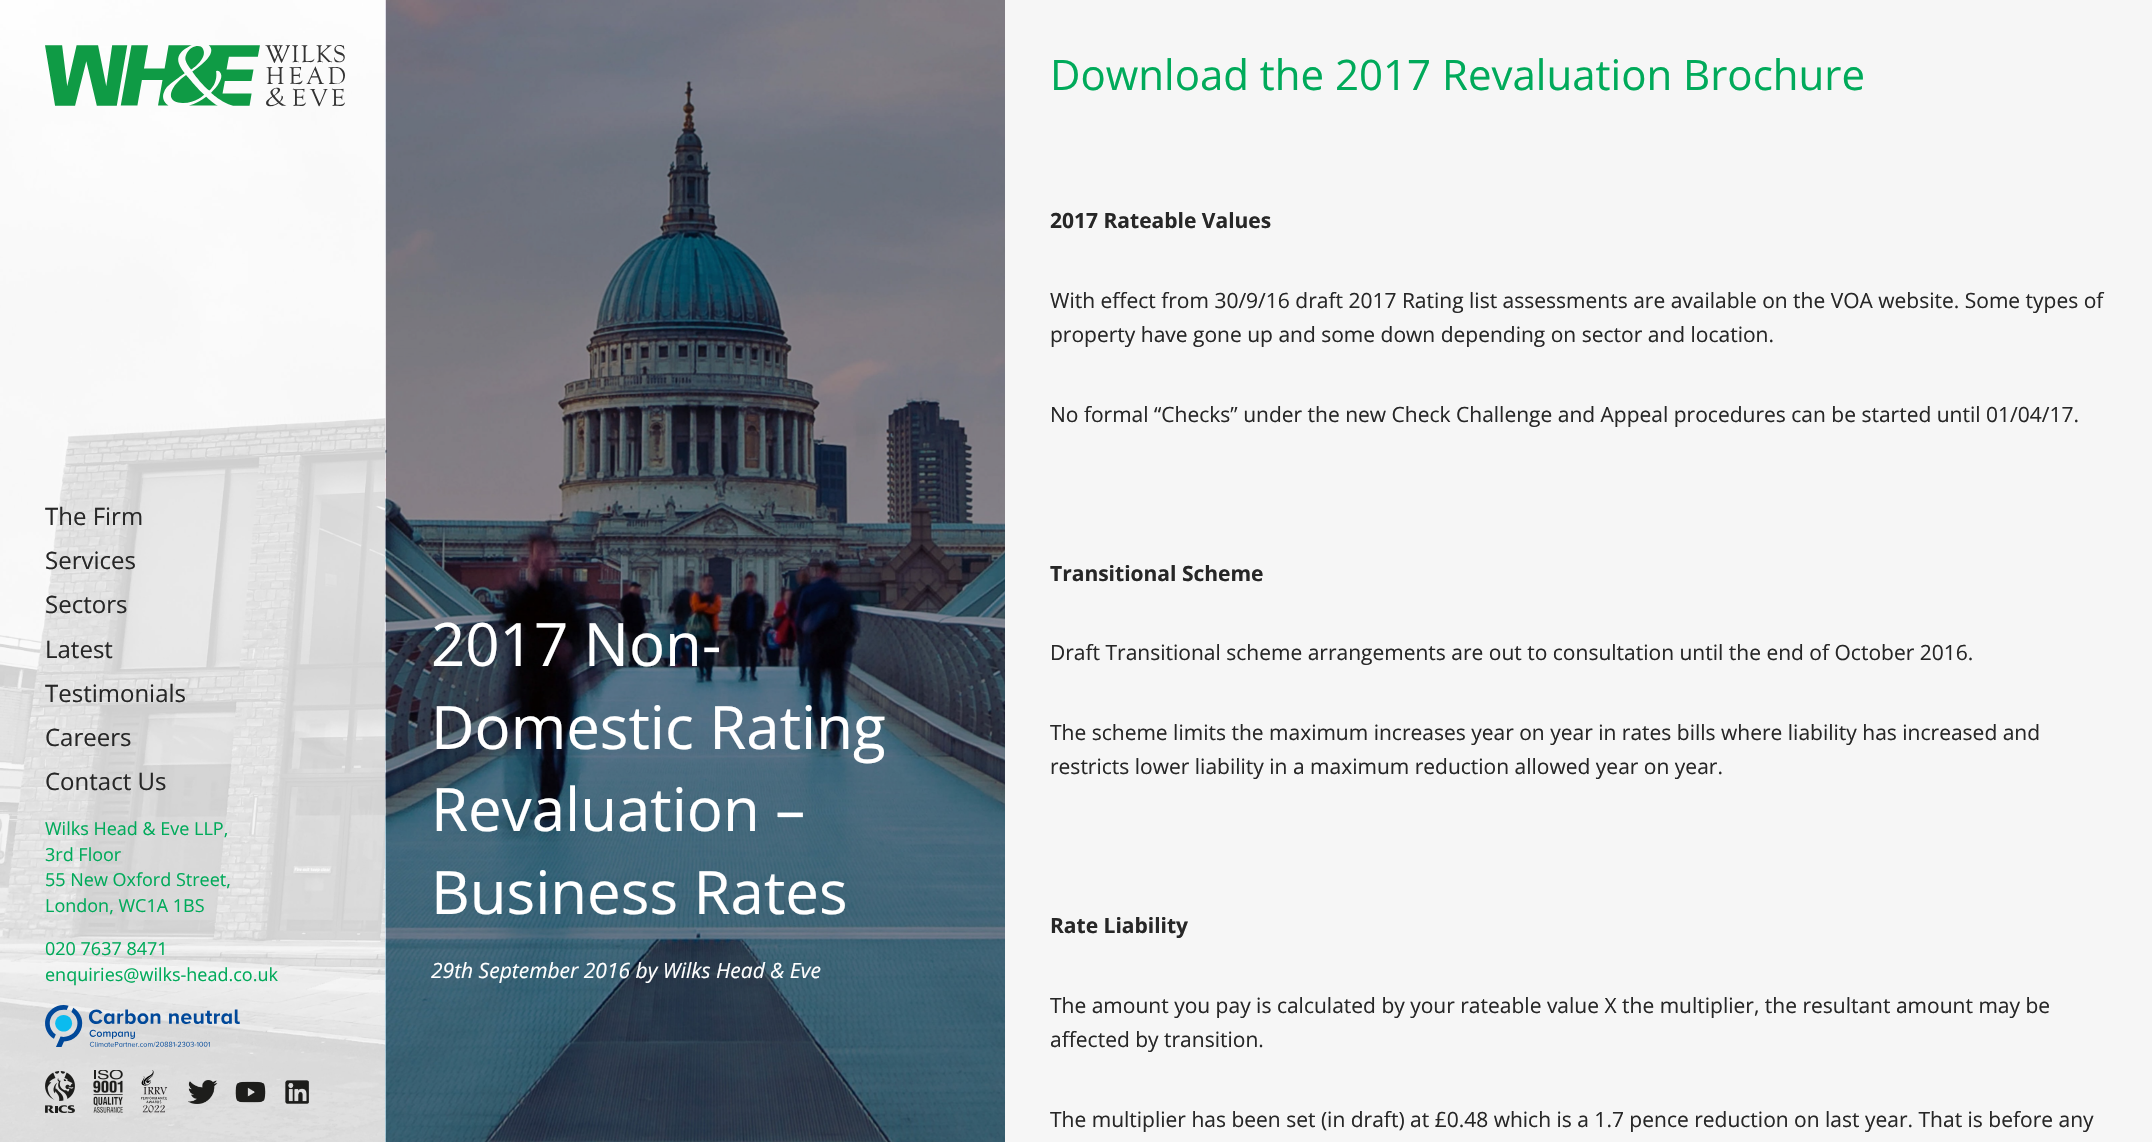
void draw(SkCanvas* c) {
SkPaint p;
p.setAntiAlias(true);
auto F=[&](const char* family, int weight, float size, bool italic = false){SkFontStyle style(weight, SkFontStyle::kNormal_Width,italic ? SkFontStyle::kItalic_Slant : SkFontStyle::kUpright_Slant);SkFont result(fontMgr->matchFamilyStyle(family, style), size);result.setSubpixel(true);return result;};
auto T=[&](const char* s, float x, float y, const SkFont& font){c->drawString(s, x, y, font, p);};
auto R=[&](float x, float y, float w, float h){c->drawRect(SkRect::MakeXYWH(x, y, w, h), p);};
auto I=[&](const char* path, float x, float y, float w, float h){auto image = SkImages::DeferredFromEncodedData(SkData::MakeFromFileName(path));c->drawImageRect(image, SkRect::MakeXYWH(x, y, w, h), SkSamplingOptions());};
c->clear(0xffffffff);
I("1.png",0,0,386,1142);
I("2.png",45,45,300,62);
auto f1 = F("Open Sans",400,24);
p.setColor(0xff272727);
T("The Firm",45,525,f1);
T("Services",45,569,f1);
T("Sectors",45,613,f1);
T("Latest",45,658,f1);
T("Testimonials",45,702,f1);
T("Careers",45,746,f1);
T("Contact Us",45,790,f1);
auto f2 = F("Open Sans",400,18);
p.setColor(0xff00aa5a);
T("Wilks Head & Eve LLP,",45,835,f2);
T("3rd Floor",45,861,f2);
T("55 New Oxford Street,",45,886,f2);
T("London, WC1A 1BS",45,912,f2);
T("020 7637 8471",45,955,f2);
T("enquiries@wilks-head.co.uk",45,981,f2);
I("3.png",45,1005,195,42);
I("4.png",45,1071,30,42);
I("5.png",93,1070,30,43);
I("6.png",141,1070,27,43);
I("7.png",188,1080,30,24);
I("8.png",235,1081,31,22);
I("9.png",285,1080,24,24);
p.setColor(0xfff6f6f6);
R(1005,0,1147,1142);
I("10.png",385,0,620,1142);
auto f3 = F("Open Sans",400,60);
p.setColor(0xffffffff);
T("2017 Non-",431,666,f3);
T("Domestic Rating",431,749,f3);
T("Revaluation –",431,831,f3);
T("Business Rates",431,914,f3);
auto f4 = F("Open Sans",400,21,true);
T("29th September 2016 by Wilks Head & Eve",431,978,f4);
auto f5 = F("Open Sans",400,42);
p.setColor(0xff00aa5a);
T("Download the 2017 Revaluation Brochure",1050,90,f5);
auto f6 = F("Open Sans",700,21);
p.setColor(0xff272727);
T("2017 Rateable Values",1050,228,f6);
auto f7 = F("Open Sans",400,21);
T("With effect from 30/9/16 draft 2017 Rating list assessments are available on the VOA website. Some types of",1050,308,f7);
T("property have gone up and some down depending on sector and location.",1050,342,f7);
T("No formal “Checks” under the new Check Challenge and Appeal procedures can be started until 01/04/17.",1050,422,f7);
T("Transitional Scheme",1050,581,f6);
T("Draft Transitional scheme arrangements are out to consultation until the end of October 2016.",1050,660,f7);
T("The scheme limits the maximum increases year on year in rates bills where liability has increased and",1050,740,f7);
T("restricts lower liability in a maximum reduction allowed year on year.",1050,774,f7);
T("Rate Liability",1050,933,f6);
T("The amount you pay is calculated by your rateable value X the multiplier, the resultant amount may be",1050,1013,f7);
T("affected by transition.",1050,1047,f7);
T("The multiplier has been set (in draft) at £0.48 which is a 1.7 pence reduction on last year. That is before any",1050,1127,f7);
}
